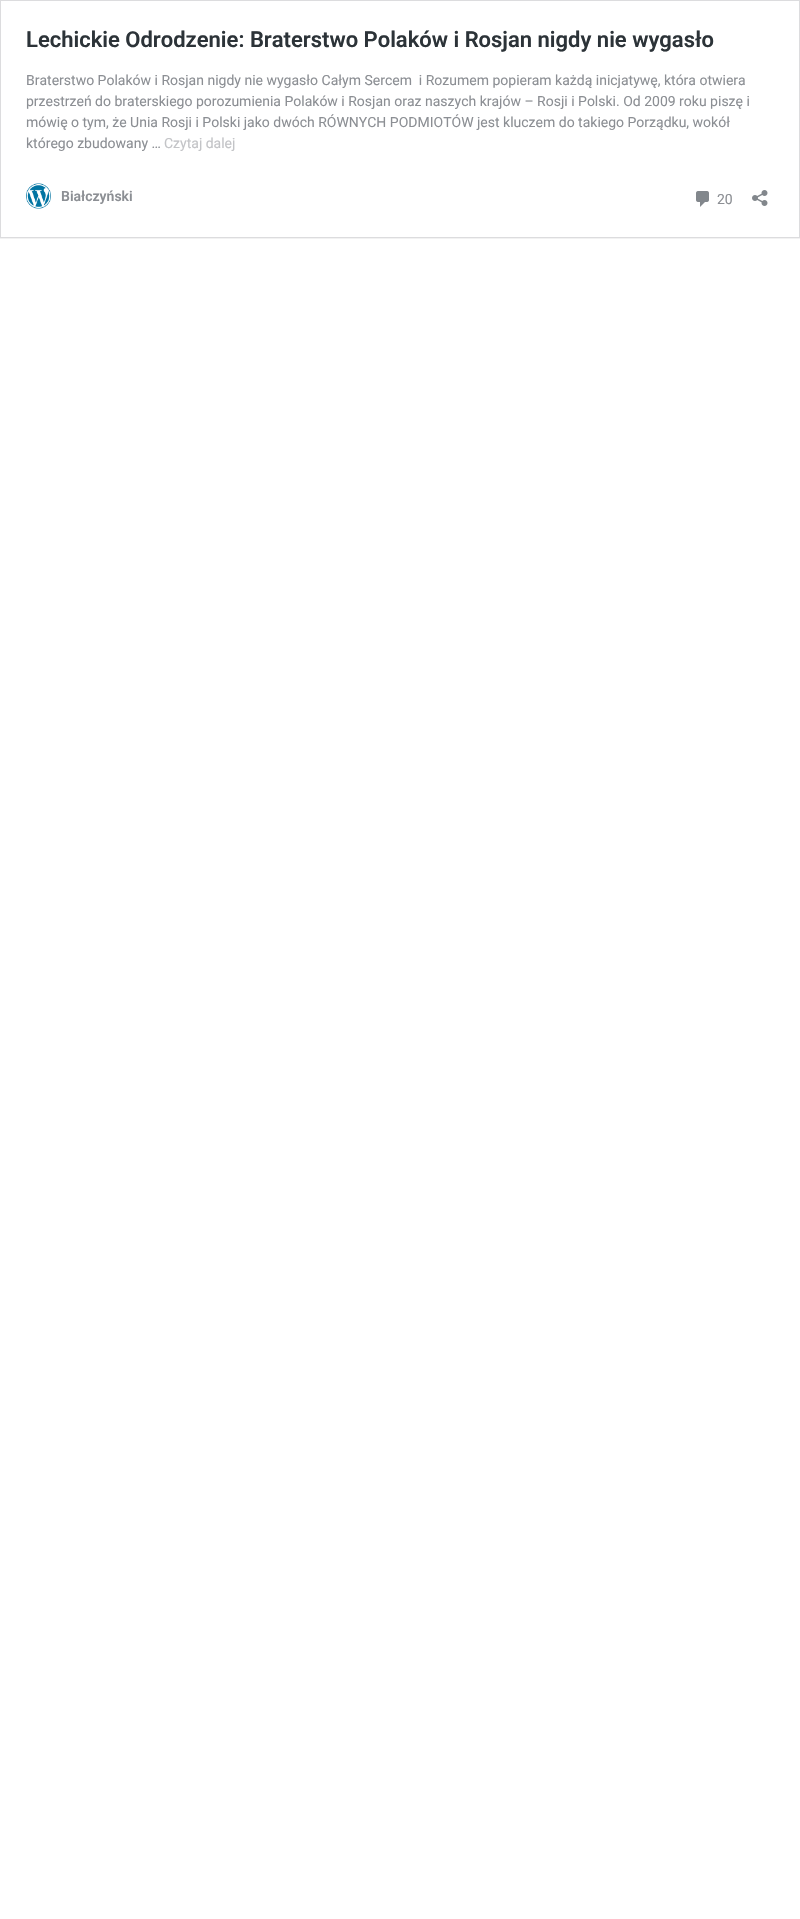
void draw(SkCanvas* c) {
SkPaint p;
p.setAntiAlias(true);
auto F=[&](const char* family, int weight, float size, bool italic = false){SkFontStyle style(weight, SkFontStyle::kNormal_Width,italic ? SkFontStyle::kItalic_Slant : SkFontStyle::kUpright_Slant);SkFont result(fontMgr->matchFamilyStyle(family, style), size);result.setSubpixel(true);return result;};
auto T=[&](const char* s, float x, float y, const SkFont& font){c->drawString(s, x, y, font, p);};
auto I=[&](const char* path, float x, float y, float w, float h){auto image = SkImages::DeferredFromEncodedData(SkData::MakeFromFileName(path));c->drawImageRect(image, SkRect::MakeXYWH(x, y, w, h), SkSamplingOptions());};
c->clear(0xffffffff);
c->save();
c->clipRect(SkRect::MakeXYWH(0,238,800,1));
p.setColor(0x0d000000);
p.setMaskFilter(SkMaskFilter::MakeBlur(kNormal_SkBlurStyle, .5));
c->drawRect(SkRect::MakeXYWH(0,1,800,238),p);
p.setMaskFilter(nullptr);
c->restore();
p.setStroke(true);
p.setStrokeWidth(1);
p.setColor(0xffdcdcde);
c->drawRect(SkRect::MakeXYWH(.5,.5,799,237),p);
auto f1 = F("Roboto",600,22);
p.setStroke(false);
p.setColor(0xff2c3338);
T("Lechickie Odrodzenie: Braterstwo Polaków i Rosjan nigdy nie wygasło",26,47,f1);
auto f2 = F("Roboto",400,14);
p.setColor(0xff8c8f94);
T("Braterstwo Polaków i Rosjan nigdy nie wygasło Całym Sercem  i Rozumem popieram każdą inicjatywę, która otwiera",26,85,f2);
T("przestrzeń do braterskiego porozumienia Polaków i Rosjan oraz naszych krajów – Rosji i Polski. Od 2009 roku piszę i",26,106,f2);
T("mówię o tym, że Unia Rosji i Polski jako dwóch RÓWNYCH PODMIOTÓW jest kluczem do takiego Porządku, wokół",26,127,f2);
T("którego zbudowany …",26,148,f2);
p.setColor(0xffc3c4c7);
T("Czytaj dalej",164,148,f2);
I("1.png",26,183,25,26);
auto f3 = F("Roboto",600,14);
p.setColor(0xff8c8f94);
T("Białczyński",61,201,f3);
I("2.png",696,191,13,16);
T("20",717,204,f2);
I("3.png",752,190,16,16);
}
